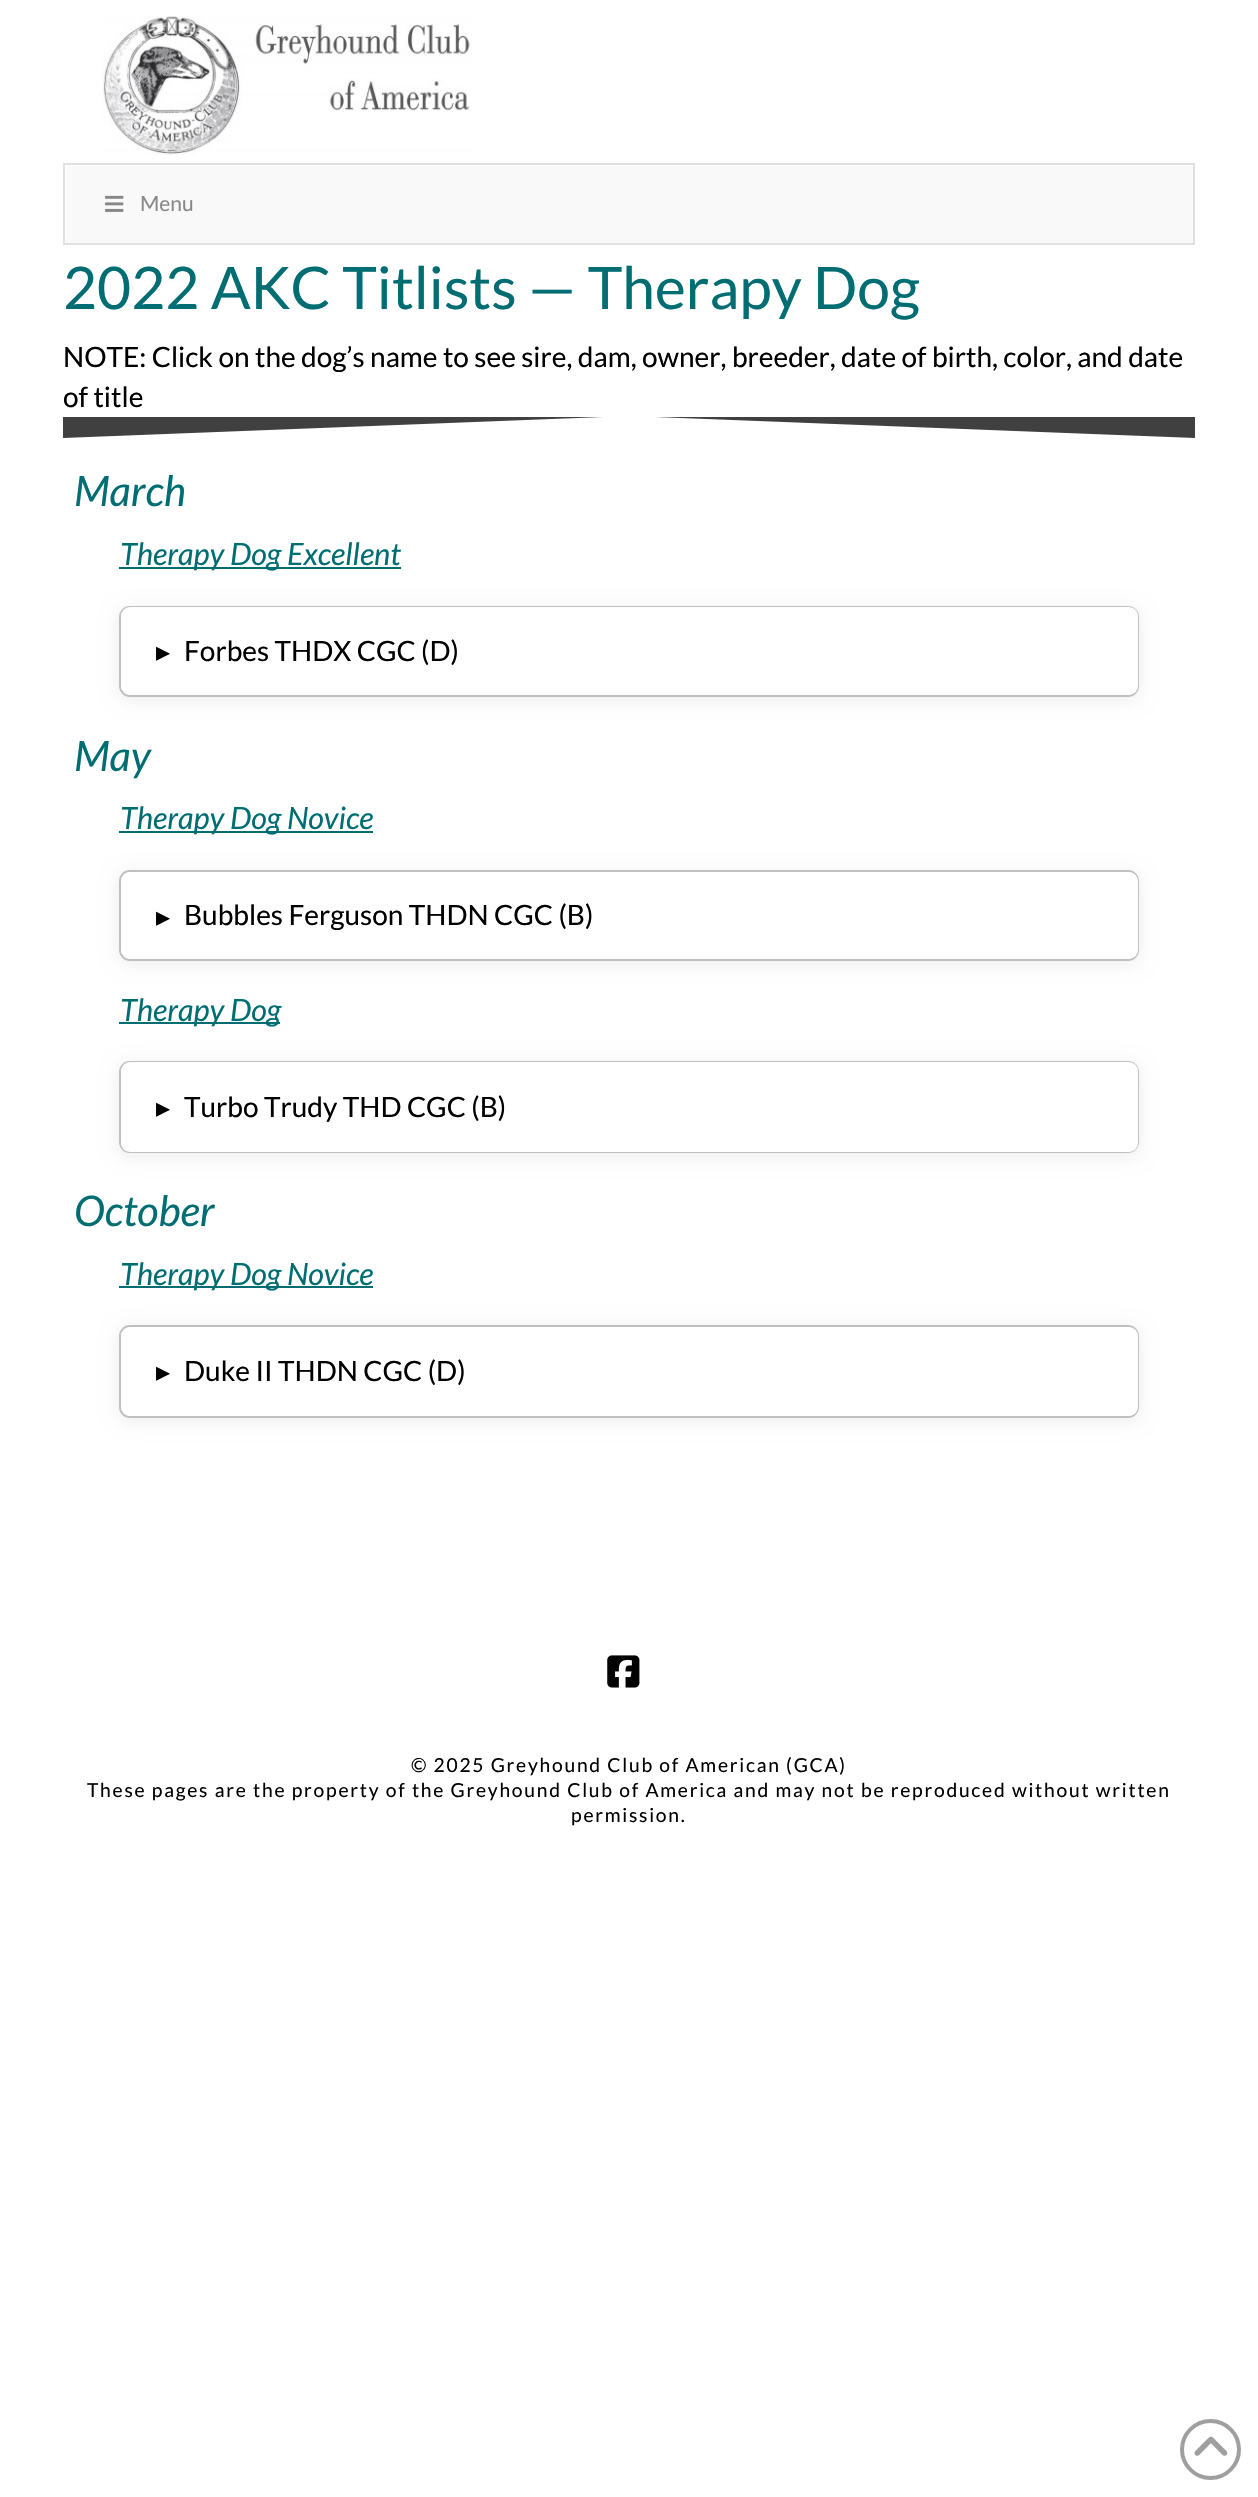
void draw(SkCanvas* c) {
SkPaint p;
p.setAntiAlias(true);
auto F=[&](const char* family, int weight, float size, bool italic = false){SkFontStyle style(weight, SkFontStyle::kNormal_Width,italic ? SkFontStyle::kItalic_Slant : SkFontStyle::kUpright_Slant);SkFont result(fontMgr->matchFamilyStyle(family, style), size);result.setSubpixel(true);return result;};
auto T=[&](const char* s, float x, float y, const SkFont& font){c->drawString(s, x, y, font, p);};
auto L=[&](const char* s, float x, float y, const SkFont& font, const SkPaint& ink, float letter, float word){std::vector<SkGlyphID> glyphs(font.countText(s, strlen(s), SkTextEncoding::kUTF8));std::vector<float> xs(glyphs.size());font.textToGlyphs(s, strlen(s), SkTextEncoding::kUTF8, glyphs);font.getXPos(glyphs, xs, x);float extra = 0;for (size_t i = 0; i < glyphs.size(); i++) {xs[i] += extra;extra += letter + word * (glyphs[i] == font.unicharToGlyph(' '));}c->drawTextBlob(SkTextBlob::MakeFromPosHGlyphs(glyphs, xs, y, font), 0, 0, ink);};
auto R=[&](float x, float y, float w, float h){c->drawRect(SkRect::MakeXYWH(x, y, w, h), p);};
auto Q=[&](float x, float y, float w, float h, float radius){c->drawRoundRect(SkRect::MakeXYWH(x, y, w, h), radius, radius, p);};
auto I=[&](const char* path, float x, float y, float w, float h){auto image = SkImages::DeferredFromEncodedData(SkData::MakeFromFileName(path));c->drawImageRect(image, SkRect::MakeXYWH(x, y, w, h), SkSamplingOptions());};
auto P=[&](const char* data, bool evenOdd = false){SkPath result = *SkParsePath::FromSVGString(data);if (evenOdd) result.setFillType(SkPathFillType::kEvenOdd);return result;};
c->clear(0xffffffff);
I("1.png",102,16,370,139);
p.setColor(0xfff9f9f9);
R(66,166,1127,77);
p.setStroke(true);
p.setStrokeWidth(2);
p.setColor(0xffe0e0e0);
c->drawRect(SkRect::MakeXYWH(64,164,1130,80),p);
I("2.png",105,195,19,17);
auto f1 = F("Lato",400,21);
p.setStroke(false);
p.setColor(0xff888888);
T("Menu",140,211,f1);
auto f2 = F("Lato",400,58.75);
p.setColor(0xff006d72);
T("2022 AKC Titlists — Therapy Dog",63,309,f2);
auto f3 = F("Lato",400,28);
p.setColor(0xff000000);
T("NOTE: Click on the dog’s name to see sire, dam, owner, breeder, date of birth, color, and date",63,367,f3);
T("of title",63,407,f3);
c->save();
c->clipRect(SkRect::MakeXYWH(63,417,1132,21));
p.setColor(0xff404040);
c->drawPath(P("M63 416h566l-566 22z"),p);
c->drawPath(P("M629 416h566v22z"),p);
c->restore();
auto f4 = F("Lato",400,42,true);
p.setColor(0xff006d72);
T("March",74,506,f4);
R(119,567,282,2);
auto f5 = F("Lato",400,30.75,true);
T("Therapy Dog Excellent",120,565,f5);
p.setColor(0xffeeeded);
p.setMaskFilter(SkMaskFilter::MakeBlur(kNormal_SkBlurStyle, 9));
c->drawRoundRect(SkRect::MakeXYWH(119,609,1020,91),11,11,p);
p.setMaskFilter(nullptr);
p.setStroke(true);
p.setColor(0xffc1bfc2);
c->drawRoundRect(SkRect::MakeXYWH(120,607,1018,89),10,10,p);
p.setStroke(false);
p.setColor(0xffffffff);
Q(121,607,1017,88,9);
auto f6 = F("DejaVu Sans",400,28);
p.setColor(0xff000000);
T("▸",156,661,f6);
T("Forbes THDX CGC (D)",184,661,f3);
p.setColor(0xff006d72);
T("May",74,771,f4);
R(119,831,254,2);
T("Therapy Dog Novice",120,829,f5);
p.setColor(0xffeeeded);
p.setMaskFilter(SkMaskFilter::MakeBlur(kNormal_SkBlurStyle, 9));
c->drawRoundRect(SkRect::MakeXYWH(119,873,1020,91),11,11,p);
p.setMaskFilter(nullptr);
p.setStroke(true);
p.setColor(0xffc1bfc2);
c->drawRoundRect(SkRect::MakeXYWH(120,871,1018,89),10,10,p);
p.setStroke(false);
p.setColor(0xffffffff);
Q(121,872,1017,87,9);
p.setColor(0xff000000);
T("▸",156,926,f6);
T("Bubbles Ferguson THDN CGC (B)",184,925,f3);
p.setColor(0xff006d72);
R(119,1022,161,2);
T("Therapy Dog",120,1021,f5);
p.setColor(0xffeeeded);
p.setMaskFilter(SkMaskFilter::MakeBlur(kNormal_SkBlurStyle, 9));
c->drawRoundRect(SkRect::MakeXYWH(119,1064,1020,93),11,11,p);
p.setMaskFilter(nullptr);
p.setStroke(true);
p.setColor(0xffc1bfc2);
c->drawRoundRect(SkRect::MakeXYWH(120,1062,1018,90),10,10,p);
p.setStroke(false);
p.setColor(0xffffffff);
Q(121,1062,1017,90,9);
p.setColor(0xff000000);
T("▸",156,1117,f6);
T("Turbo Trudy THD CGC (B)",184,1117,f3);
p.setColor(0xff006d72);
T("October",74,1226,f4);
R(119,1286,254,2);
T("Therapy Dog Novice",120,1285,f5);
p.setColor(0xffeeeded);
p.setMaskFilter(SkMaskFilter::MakeBlur(kNormal_SkBlurStyle, 9));
c->drawRoundRect(SkRect::MakeXYWH(119,1328,1020,93),11,11,p);
p.setMaskFilter(nullptr);
p.setStroke(true);
p.setColor(0xffc1bfc2);
c->drawRoundRect(SkRect::MakeXYWH(120,1326,1018,91),10,10,p);
p.setStroke(false);
p.setColor(0xffffffff);
Q(121,1327,1017,89,9);
p.setColor(0xff000000);
T("▸",156,1381,f6);
T("Duke II THDN CGC (D)",184,1381,f3);
I("3.png",607,1655,33,33);
auto f7 = F("Lato",400,19.25);
L("© 2025 Greyhound Club of American (GCA)",411,1772,f7,p,1.75,0);
L("These pages are the property of the Greyhound Club of America and may not be reproduced without written",87,1797,f7,p,1.75,0);
L("permission.",571,1822,f7,p,1.75,0);
p.setStroke(true);
p.setStrokeWidth(4);
p.setColor(0xff9f9f9f);
c->drawCircle(1210.5,2449.5,28.5,p);
I("4.png",1194,2436,34,20);
}
